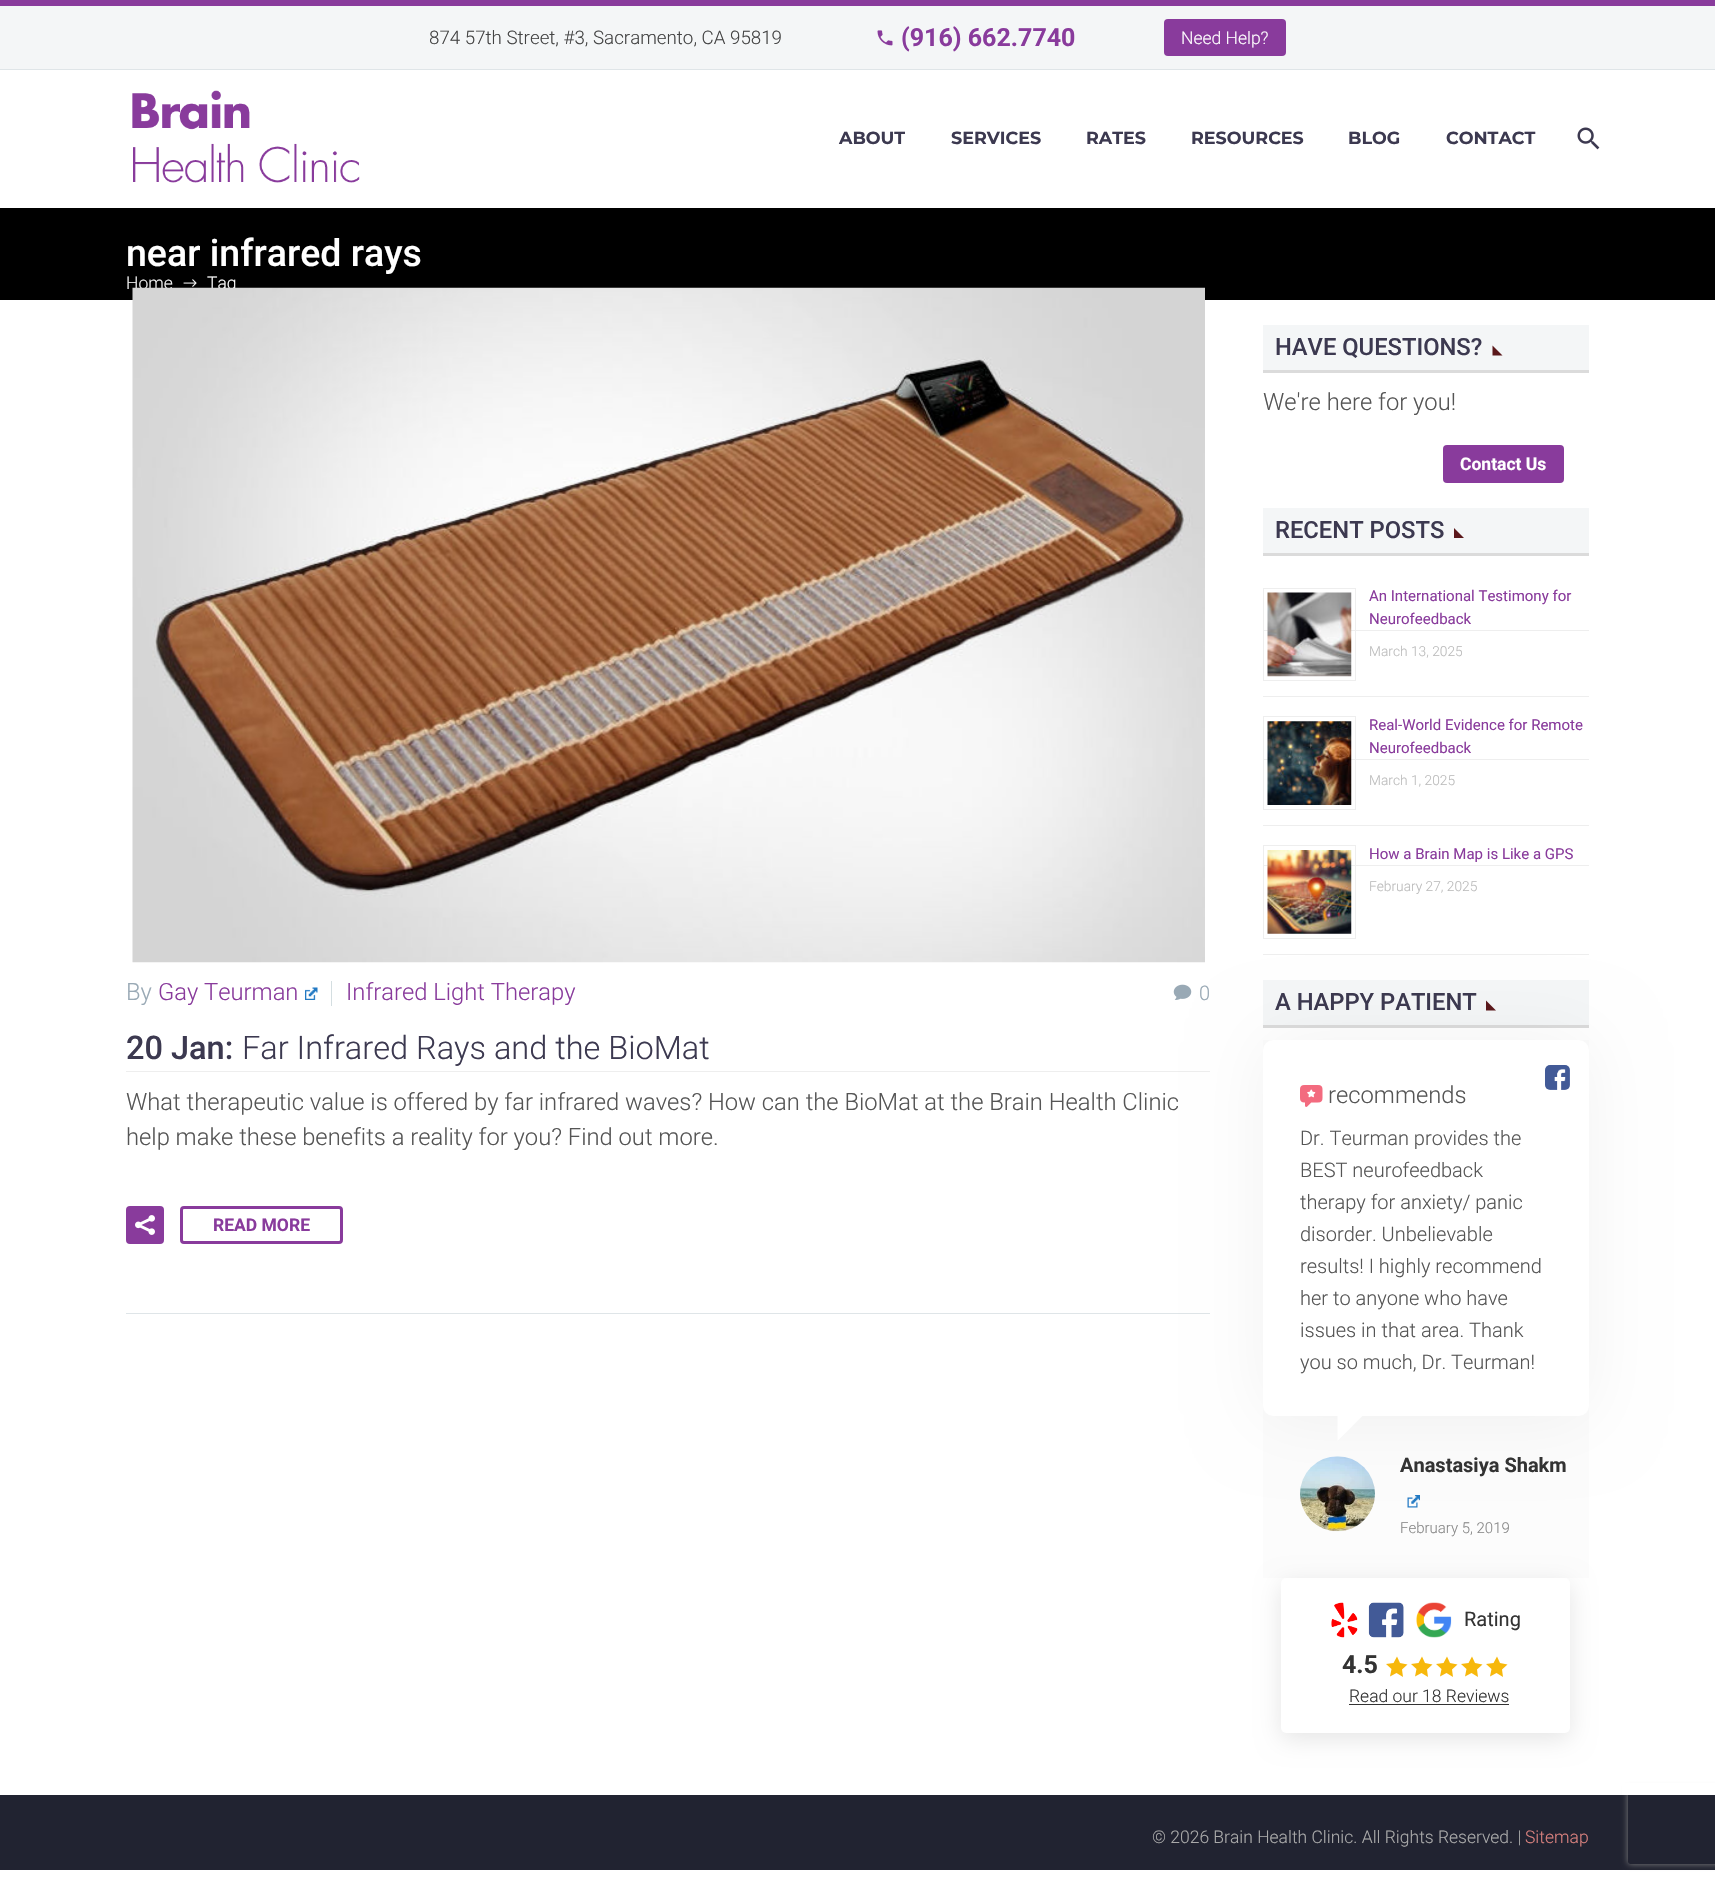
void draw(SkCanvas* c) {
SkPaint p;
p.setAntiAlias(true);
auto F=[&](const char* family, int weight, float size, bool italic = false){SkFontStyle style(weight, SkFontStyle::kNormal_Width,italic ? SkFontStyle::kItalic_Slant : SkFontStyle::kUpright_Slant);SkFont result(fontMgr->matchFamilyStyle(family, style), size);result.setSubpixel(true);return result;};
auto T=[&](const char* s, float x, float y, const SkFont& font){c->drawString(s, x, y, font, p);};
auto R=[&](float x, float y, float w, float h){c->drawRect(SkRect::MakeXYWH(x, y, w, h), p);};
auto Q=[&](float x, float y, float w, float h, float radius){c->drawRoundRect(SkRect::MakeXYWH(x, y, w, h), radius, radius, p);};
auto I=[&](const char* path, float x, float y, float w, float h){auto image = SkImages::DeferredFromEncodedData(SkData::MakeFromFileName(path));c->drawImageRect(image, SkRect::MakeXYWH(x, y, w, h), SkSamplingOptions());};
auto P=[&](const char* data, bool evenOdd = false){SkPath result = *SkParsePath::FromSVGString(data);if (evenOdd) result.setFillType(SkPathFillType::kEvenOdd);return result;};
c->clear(0xffffffff);
p.setColor(0xfff4f6f7);
R(0,6,1715,63);
p.setColor(0xff893b9c);
R(0,0,1715,6);
p.setColor(0xffdfe5e8);
R(0,69,1715,1);
auto f1 = F("Roboto",300,18.75);
p.setColor(0xff444444);
T("874 57th Street, #3, Sacramento, CA 95819",429,44,f1);
I("1.png",877,30,16,16);
auto f2 = F("Roboto",700,25);
p.setColor(0xff893b9c);
T("(916) 662.7740",901,46,f2);
Q(1164,19,122,37,4);
auto f3 = F("Roboto",300,17.5);
p.setColor(0xffffffff);
T("Need Help?",1181,44,f3);
I("2.png",132,90,228,93);
auto f4 = F("Montserrat",700,17.5);
p.setColor(0xff3c3950);
T("ABOUT",839,144,f4);
T("SERVICES",951,144,f4);
T("RATES",1086,144,f4);
T("RESOURCES",1191,144,f4);
T("BLOG",1348,144,f4);
T("CONTACT",1446,144,f4);
I("3.png",1577,127,23,23);
p.setColor(0xff000000);
R(0,208,1715,92);
auto f5 = F("Roboto",500,37.5);
p.setColor(0xffffffff);
T("near infrared rays",126,266,f5);
p.setColor(0xfff3f3f3);
T("Home",126,289,f3);
I("4.png",183,279,14,8);
p.setColor(0xffffffff);
T("Tag",207,289,f3);
p.setColor(0xff212331);
R(0,1795,1715,75);
c->save();
c->clipPath(P("M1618 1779h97v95h-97zm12.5 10h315c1.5 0 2.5 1 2.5 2.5v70c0 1.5-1 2.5-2.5 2.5h-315c-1.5 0-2.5-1-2.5-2.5v-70c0-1.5 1-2.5 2.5-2.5z",true),true);
p.setColor(0xff808080);
p.setMaskFilter(SkMaskFilter::MakeBlur(kNormal_SkBlurStyle, 3));
c->drawRoundRect(SkRect::MakeXYWH(1628,1789,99,75),2.5,2.5,p);
p.setMaskFilter(nullptr);
c->restore();
p.setColor(0xffffffff);
R(1622,1783,93,12);
p.setColor(0xffdfe5e8);
R(126,1313,1084,1);
I("5.png",132,287,1073,676);
auto f6 = F("Roboto",300,23.75);
p.setColor(0xff99a9b5);
T("By",126,1000,f6);
p.setColor(0xff893b9c);
T("Gay Teurman",158,1000,f6);
I("6.png",305,987,13,13);
p.setColor(0xffd4dee1);
R(331,981,1,25);
p.setColor(0xff893b9c);
T("Infrared Light Therapy",346,1000,f6);
I("7.png",1173,984,19,16);
auto f7 = F("Roboto",300,20);
p.setColor(0xff99a9b5);
T("0",1199,1000,f7);
p.setColor(0xffeeeeee);
R(126,1071,1084,1);
auto f8 = F("Roboto",500,32.5);
p.setColor(0xff3c3950);
T("20 Jan:",126,1059,f8);
auto f9 = F("Roboto",300,32.5);
T("Far Infrared Rays and the BioMat",242,1059,f9);
p.setColor(0xff555555);
T("What therapeutic value is offered by far infrared waves? How can the BioMat at the Brain Health Clinic",126,1110,f6);
T("help make these benefits a reality for you? Find out more.",126,1145,f6);
p.setColor(0xff893b9c);
Q(126,1206,38,38,4);
I("8.png",135,1215,20,20);
p.setStroke(true);
p.setStrokeWidth(3);
c->drawRoundRect(SkRect::MakeXYWH(181.5,1207.5,160,35),2.5,2.5,p);
auto f10 = F("Roboto",700,17.5);
p.setStroke(false);
T("READ MORE",213,1231,f10);
p.setColor(0xfff4f6f7);
R(1263,325,326,45);
p.setColor(0xffdbdbdb);
R(1263,370,326,3);
auto f11 = F("Roboto",500,23.75);
p.setColor(0xff3c3950);
T("HAVE QUESTIONS?",1275,355,f11);
p.setColor(0xff5b181b);
c->drawPath(P("M1492.5 345.5v10h10z"),p);
p.setColor(0xff555555);
T("We're here for you!",1263,410,f6);
p.setColor(0xff893b9c);
Q(1443,445,121,38,4);
p.setColor(0xffffffff);
T("Contact Us",1460,470,f10);
p.setColor(0xfff4f6f7);
R(1263,508,326,45);
p.setColor(0xffdbdbdb);
R(1263,553,326,3);
p.setColor(0xff3c3950);
T("RECENT POSTS",1275,538,f11);
p.setColor(0xff5b181b);
c->drawPath(P("M1454 528v10h10z"),p);
p.setColor(0xffeeeeee);
R(1263,696,326,1);
R(1263,630,326,1);
p.setStroke(true);
p.setStrokeWidth(1);
c->drawRect(SkRect::MakeXYWH(1263.5,588.5,92,92),p);
I("9.png",1267,592,85,85);
auto f12 = F("Roboto",400,15);
p.setStroke(false);
p.setColor(0xff893b9c);
T("An International Testimony for",1369,601,f12);
T("Neurofeedback",1369,624,f12);
auto f13 = F("Roboto",300,13.75);
p.setColor(0xffbbbbbb);
T("March 13, 2025",1369,656,f13);
p.setColor(0xffeeeeee);
R(1263,825,326,1);
R(1263,759,326,1);
p.setStroke(true);
c->drawRect(SkRect::MakeXYWH(1263.5,716.5,92,93),p);
I("10.png",1267,721,85,84);
p.setStroke(false);
p.setColor(0xff893b9c);
T("Real-World Evidence for Remote",1369,730,f12);
T("Neurofeedback",1369,753,f12);
p.setColor(0xffbbbbbb);
T("March 1, 2025",1369,785,f13);
p.setColor(0xffeeeeee);
R(1263,954,326,1);
R(1263,865,326,1);
p.setStroke(true);
c->drawRect(SkRect::MakeXYWH(1263.5,845.5,92,93),p);
I("11.png",1267,850,85,84);
p.setStroke(false);
p.setColor(0xff893b9c);
T("How a Brain Map is Like a GPS",1369,859,f12);
p.setColor(0xffbbbbbb);
T("February 27, 2025",1369,891,f13);
p.setColor(0xfff4f6f7);
R(1263,980,326,45);
p.setColor(0xffdbdbdb);
R(1263,1025,326,3);
p.setColor(0xff3c3950);
T("A HAPPY PATIENT",1275,1010,f11);
p.setColor(0xff5b181b);
c->drawPath(P("M1486 1000.5v10h10z"),p);
p.setColor(0xfffcfcfc);
R(1263,1040,326,538);
I("14.png",1300,1456,75,76);
I("15.png",1407,1495,13,13);
p.setColor(0x0d000000);
p.setMaskFilter(SkMaskFilter::MakeBlur(kNormal_SkBlurStyle, 35.5));
c->drawRoundRect(SkRect::MakeXYWH(1263,1040,326,376),10,10,p);
p.setMaskFilter(nullptr);
p.setColor(0xffffffff);
Q(1263,1040,326,376,10);
I("12.png",1545,1065,25,25);
I("13.png",1300,1085,23,22);
p.setColor(0xff555555);
T("recommends",1328,1103,f6);
T("Dr. Teurman provides the",1300,1145,f7);
T("BEST neurofeedback",1300,1177,f7);
T("therapy for anxiety/ panic",1300,1209,f7);
T("disorder. Unbelievable",1300,1241,f7);
T("results! I highly recommend",1300,1273,f7);
T("her to anyone who have",1300,1305,f7);
T("issues in that area. Thank",1300,1337,f7);
T("you so much, Dr. Teurman!",1300,1369,f7);
p.setColor(0xffffffff);
c->drawPath(P("M1337.5 1416h25l-25 25z"),p);
auto f14 = F("Roboto",700,20);
p.setColor(0xff333333);
T("Anastasiya Shakm",1400,1472,f14);
auto f15 = F("Roboto",300,15);
p.setColor(0xff888888);
T("February 5, 2019",1400,1533,f15);
p.setColor(0x1a000000);
p.setMaskFilter(SkMaskFilter::MakeBlur(kNormal_SkBlurStyle, 12.5));
c->drawRoundRect(SkRect::MakeXYWH(1281,1584,289,155),5,5,p);
p.setMaskFilter(nullptr);
p.setColor(0xffffffff);
Q(1281,1578,289,155,5);
I("16.png",1331,1602,27,36);
I("17.png",1368,1602,36,36);
I("18.png",1416,1602,36,36);
auto f16 = F("Roboto",400,20);
p.setColor(0xff333333);
T("Rating",1464,1626,f16);
T("4.5",1342,1673,f2);
p.setColor(0xfff7b80c);
c->drawPath(P("M1396.5 1673l-6.5 3.5l1.5-7.5l-5.5-5l7.5-1l3.5-6.5l3 6.5l7.5 1.5l-5.5 5l1 7.5zm25 0l-6.5 3.5l1.5-7.5l-5.5-5l7.5-1l3.5-6.5l3 6.5l7.5 1.5l-5.5 5l1 7.5z"),p);
c->drawPath(P("M1446.5 1673l-6.5 3.5l1.5-7.5l-5.5-5l7.5-1l3.5-6.5l3 6.5l7.5 1.5l-5.5 5l1 7.5zm25 0l-6.5 3.5l1.5-7.5l-5.5-5l7.5-1l3.5-6.5l3 6.5l7.5 1.5l-5.5 5l1 7.5z"),p);
c->drawPath(P("M1496.5 1673l-6.5 3.5l1.5-7.5l-5.5-5l7.5-1l3.5-6.5l3 6.5l7.5 1.5l-5.5 5l1 7.5z"),p);
p.setColor(0xff333333);
T("Read our 18 Reviews",1349,1702,f3);
R(1349,1704,160,1);
p.setColor(0xffaaaaaa);
T("© 2026 Brain Health Clinic. All Rights Reserved. |",1152,1843,f3);
p.setColor(0xffda817e);
T("Sitemap",1525,1843,f3);
}
